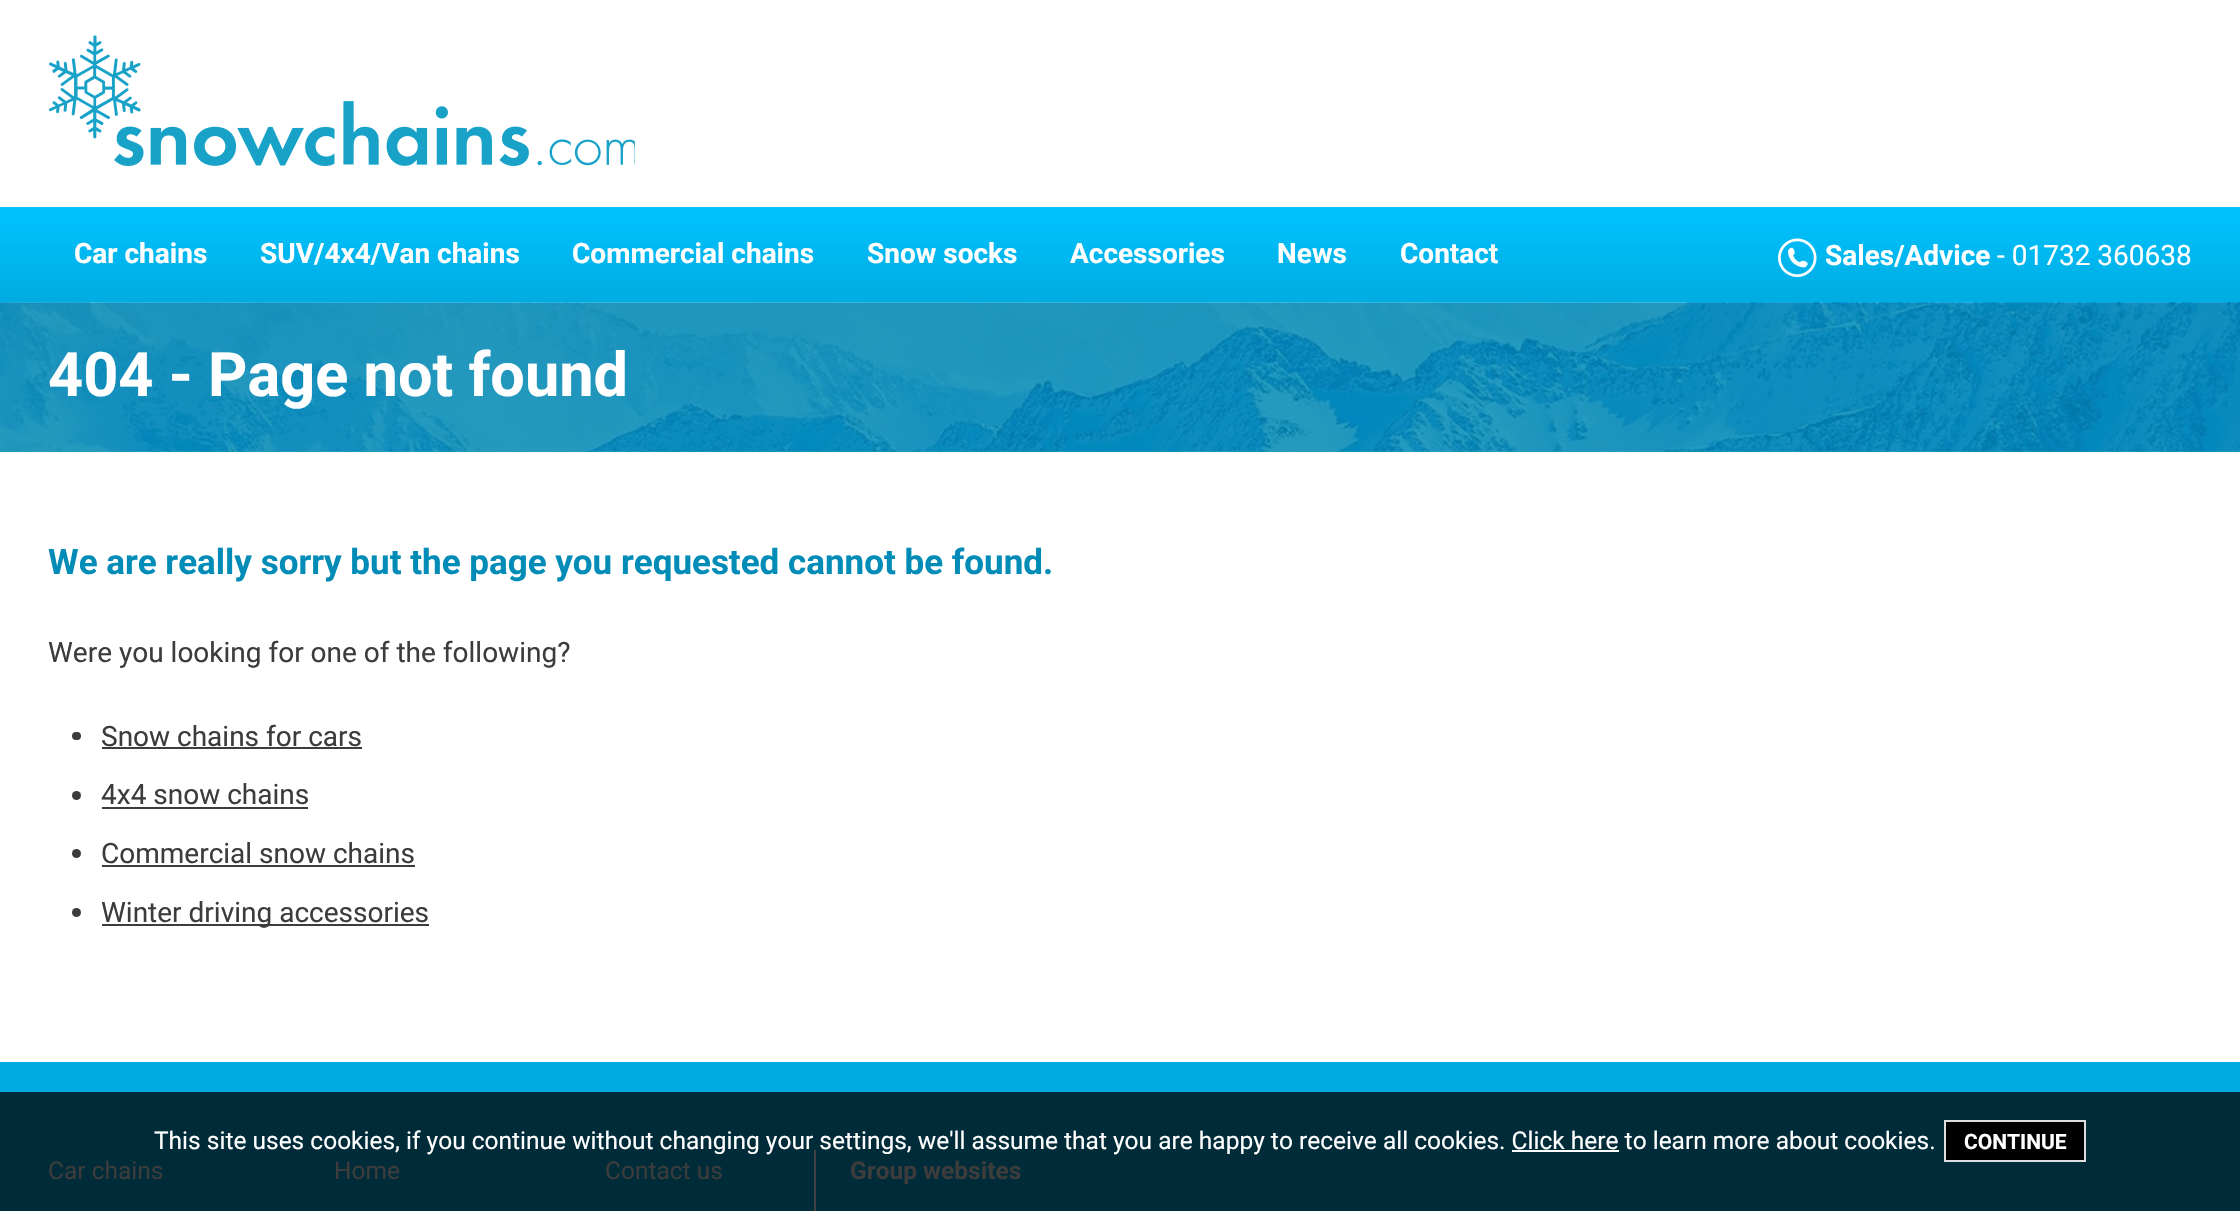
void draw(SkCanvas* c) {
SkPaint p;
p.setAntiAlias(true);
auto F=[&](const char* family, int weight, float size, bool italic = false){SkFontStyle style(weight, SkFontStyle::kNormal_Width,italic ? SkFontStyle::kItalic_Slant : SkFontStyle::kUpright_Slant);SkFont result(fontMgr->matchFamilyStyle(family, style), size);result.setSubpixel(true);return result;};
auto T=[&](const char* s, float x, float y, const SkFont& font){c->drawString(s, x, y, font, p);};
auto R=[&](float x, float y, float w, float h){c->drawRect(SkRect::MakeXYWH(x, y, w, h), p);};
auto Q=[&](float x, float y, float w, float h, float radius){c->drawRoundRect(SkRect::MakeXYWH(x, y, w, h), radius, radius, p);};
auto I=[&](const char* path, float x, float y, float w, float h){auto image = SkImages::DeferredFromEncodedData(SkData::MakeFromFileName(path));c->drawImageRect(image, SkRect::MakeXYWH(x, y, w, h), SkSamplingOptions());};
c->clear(0xffffffff);
p.setColor(0xff279dc2);
R(0,451,2240,1);
I("1.png",49,35,586,131);
{
const SkColor colors[] = {0xff00c3ff,0xff00ace1};
const float stops[] = {0,1};
const SkPoint ends[] = {{1120,206}, {1120,303}};
p.setShader(SkGradientShader::MakeLinear(ends, colors, stops, 2, SkTileMode::kClamp));
p.setAlpha(255);
}
R(0,207,2240,96);
auto f1 = F("Roboto",700,28);
p.setShader(nullptr);
p.setColor(0xffffffff);
T("Car chains",74,263,f1);
T("SUV/4x4/Van chains",260,263,f1);
T("Commercial chains",572,263,f1);
T("Snow socks",867,263,f1);
T("Accessories",1070,263,f1);
T("News",1277,263,f1);
T("Contact",1400,263,f1);
I("2.png",1778,238,39,39);
T("Sales/Advice",1825,265,f1);
auto f2 = F("Roboto",400,28);
T("- 01732 360638",1997,265,f2);
I("3.png",0,302,2240,150);
auto f3 = F("Roboto",700,61.25);
T("404 - Page not found",48,396,f3);
auto f4 = F("Roboto",700,35);
p.setColor(0xff008cb7);
T("We are really sorry but the page you requested cannot be found.",48,574,f4);
p.setColor(0xff3c3c3c);
T("Were you looking for one of the following?",48,662,f2);
Q(72,732,9,8,4);
T("Snow chains for cars",101,746,f2);
R(102,747,260,2);
c->drawCircle(76.5,795.5,4.5,p);
T("4x4 snow chains",101,804,f2);
R(102,807,206,2);
c->drawCircle(76.5,853.5,4.5,p);
T("Commercial snow chains",101,863,f2);
R(102,865,313,2);
c->drawCircle(76.5,912.5,4.5,p);
R(102,924,327,2);
T("Winter driving accessories",101,922,f2);
p.setColor(0xff002b38);
R(0,1092,2240,119);
p.setColor(0xff404040);
R(814,1150,2,61);
auto f5 = F("Roboto",400,24.5);
p.setColor(0xffffffff);
T("This site uses cookies, if you continue without changing your settings, we'll assume that you are happy to receive all cookies. Click here to learn more about cookies.",154,1149,f5);
R(1512,1150,107,2);
p.setColor(0xff000000);
c->drawRect(SkRect::MakeXYWH(1945,1121,140,40),p);
p.setStroke(true);
p.setStrokeWidth(2);
p.setColor(0xffdedede);
c->drawRect(SkRect::MakeXYWH(1945,1121,140,40),p);
auto f6 = F("Roboto",700,21);
p.setStroke(false);
p.setColor(0xffffffff);
T("CONTINUE",1964,1149,f6);
p.setColor(0xff00ace1);
R(0,1062,2240,30);
p.setColor(0xff3c3c3c);
T("Car chains",48,1179,f5);
T("Home",334,1179,f5);
T("Contact us",605,1179,f5);
auto f7 = F("Roboto",700,24.5);
T("Group websites",850,1179,f7);
}
